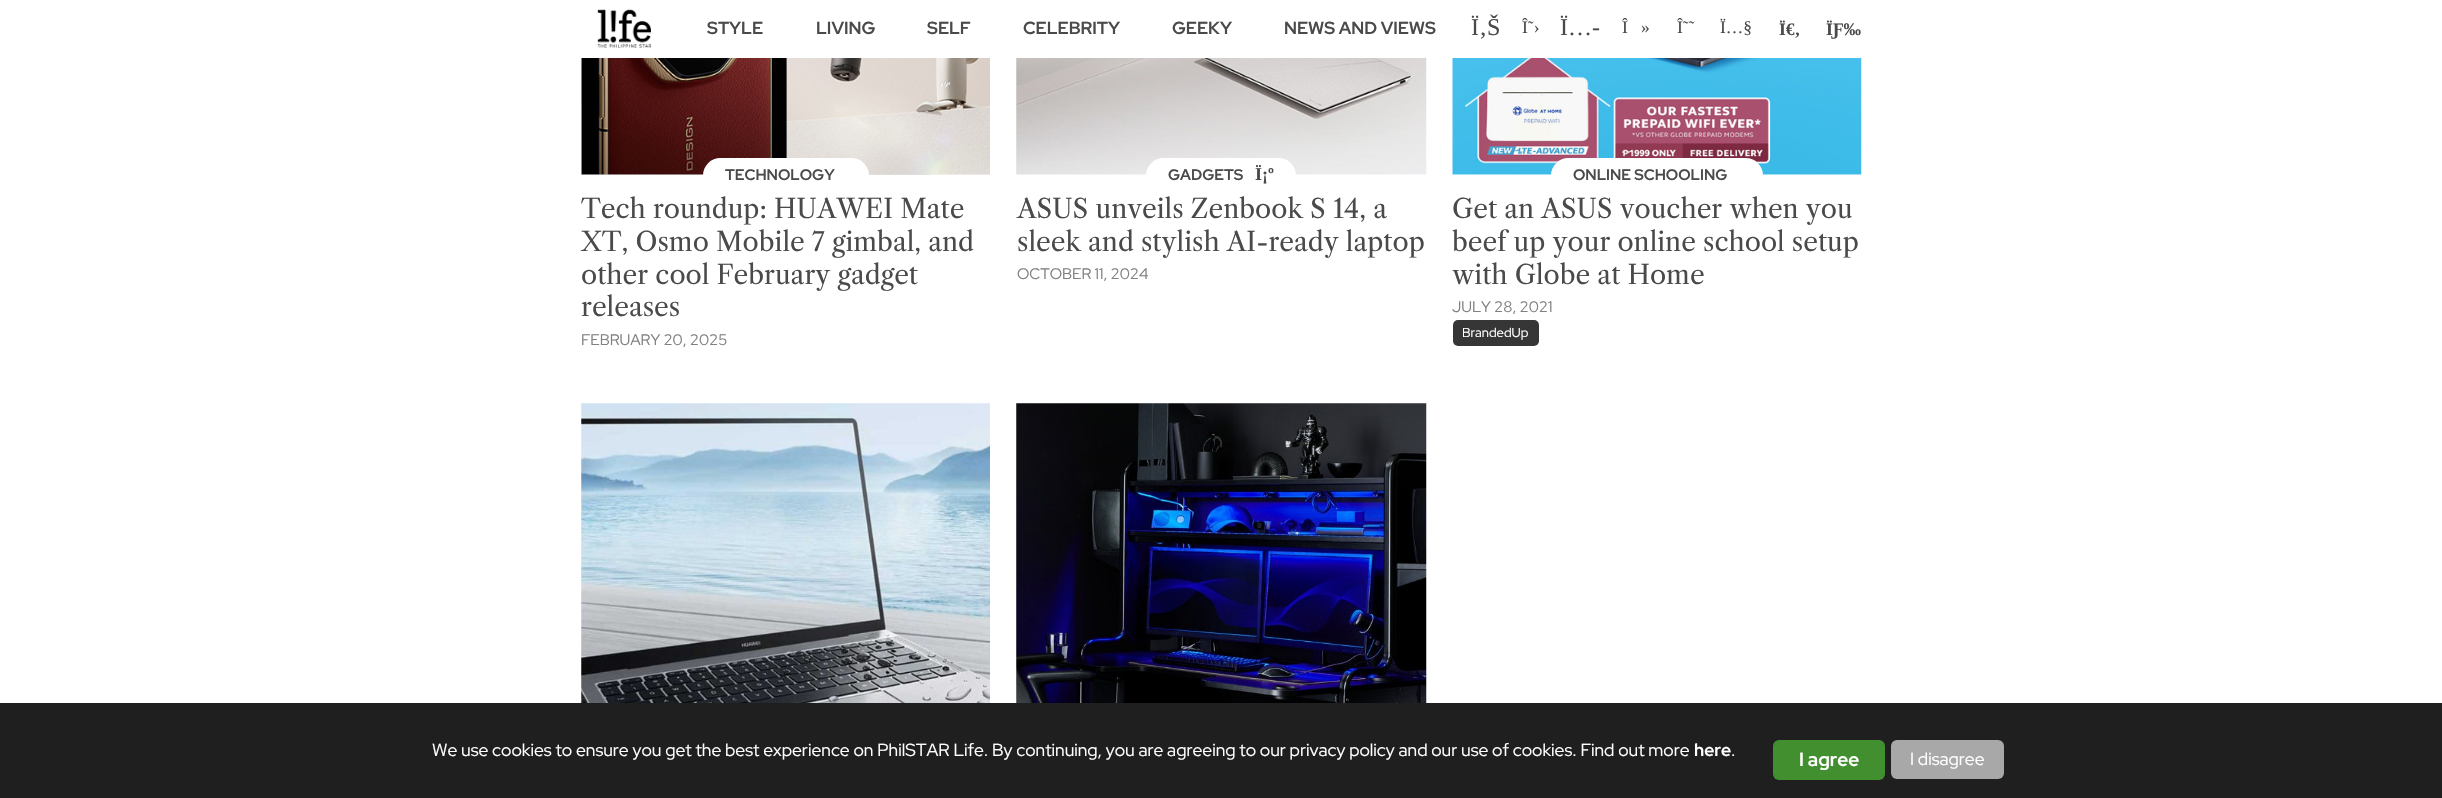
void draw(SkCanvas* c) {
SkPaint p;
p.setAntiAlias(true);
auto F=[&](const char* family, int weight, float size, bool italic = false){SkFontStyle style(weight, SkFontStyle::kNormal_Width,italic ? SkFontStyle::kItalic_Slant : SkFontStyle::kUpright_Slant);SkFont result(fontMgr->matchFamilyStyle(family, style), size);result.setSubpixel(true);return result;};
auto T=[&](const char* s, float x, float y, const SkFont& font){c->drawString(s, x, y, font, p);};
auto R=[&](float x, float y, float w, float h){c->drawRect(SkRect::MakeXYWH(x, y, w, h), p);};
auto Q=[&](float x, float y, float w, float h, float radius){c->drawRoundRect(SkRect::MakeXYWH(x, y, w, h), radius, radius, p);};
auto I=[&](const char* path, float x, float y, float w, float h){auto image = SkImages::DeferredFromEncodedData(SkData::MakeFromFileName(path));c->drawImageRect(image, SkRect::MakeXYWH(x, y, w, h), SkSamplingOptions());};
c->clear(0xffffffff);
I("1.png",597,9,54,39);
auto f1 = F("Red Hat Display",700,17.5);
p.setColor(0xff4a4a4a);
T("STYLE",707,34,f1);
T("LIVING",816,34,f1);
T("SELF",927,34,f1);
T("CELEBRITY",1023,34,f1);
T("GEEKY",1172,34,f1);
T("NEWS AND VIEWS",1284,34,f1);
auto f2 = F("Liberation Serif",400,24);
T("Ï‚Š",1471,35,f2);
auto f3 = F("Liberation Serif",400,17.5);
T("Î˜›",1522,33,f3);
T("Ï…-",1560,35,f2);
T("Î",1622,33,f3);
T("»",1641,33,f3);
T("Î˜˜",1677,33,f3);
T("Ï…§",1720,33,f3);
auto f4 = F("Liberation Serif",700,17.5);
T("Ï€‚",1779,35,f4);
T("ÏƑ‰",1826,35,f4);
I("2.png",581,58,409,117);
p.setColor(0xffffffff);
Q(703,158,166,35,17.5);
auto f5 = F("Red Hat Display",700,15.25);
p.setColor(0xff4a4a4a);
T("TECHNOLOGY",725,180,f5);
auto f6 = F("Libre Caslon Text",400,26.25);
T("Tech roundup: HUAWEI Mate",581,218,f6);
T("XT, Osmo Mobile 7 gimbal, and",581,251,f6);
T("other cool February gadget",581,284,f6);
T("releases",581,316,f6);
auto f7 = F("Red Hat Display",400,15.25);
p.setColor(0xff808080);
T("FEBRUARY 20, 2025",581,345,f7);
I("3.png",1016,58,411,117);
p.setColor(0xffffffff);
Q(1146,158,150,35,17.5);
p.setColor(0xff4a4a4a);
T("GADGETS",1168,180,f5);
auto f8 = F("Liberation Serif",700,18);
T("Ï¡º",1255,180,f8);
T("ASUS unveils Zenbook S 14, a",1017,218,f6);
T("sleek and stylish AI-ready laptop",1017,251,f6);
p.setColor(0xff808080);
T("OCTOBER 11, 2024",1017,279,f7);
I("4.png",1452,58,410,117);
p.setColor(0xffffffff);
Q(1551,158,212,35,17.5);
p.setColor(0xff4a4a4a);
T("ONLINE SCHOOLING",1573,180,f5);
T("Get an ASUS voucher when you",1452,218,f6);
T("beef up your online school setup",1452,251,f6);
T("with Globe at Home",1452,284,f6);
p.setColor(0xff808080);
T("JULY 28, 2021",1452,312,f7);
p.setColor(0xff363636);
Q(1453,320,86,26,5);
auto f9 = F("Red Hat Display",400,13);
p.setColor(0xffffffff);
T("BrandedUp",1462,337,f9);
I("5.png",581,403,409,300);
I("6.png",1016,403,411,300);
p.setColor(0xff1f1f1f);
R(0,703,2442,95);
auto f10 = F("Red Hat Display",400,17.5);
p.setColor(0xffffffff);
T("We use cookies to ensure you get the best experience on PhilSTAR Life. By continuing, you are agreeing to our privacy policy and our use of cookies. Find out more",432,756,f10);
T("here",1694,756,f1);
T(".",1731,756,f10);
p.setColor(0xff428f30);
Q(1773,740,112,40,6);
auto f11 = F("Red Hat Display",700,19);
p.setColor(0xffffffff);
T("I agree",1799,766,f11);
p.setColor(0xffa8a8a8);
Q(1891,740,113,39,6);
p.setColor(0xffffffff);
T("I disagree",1910,765,f10);
}
